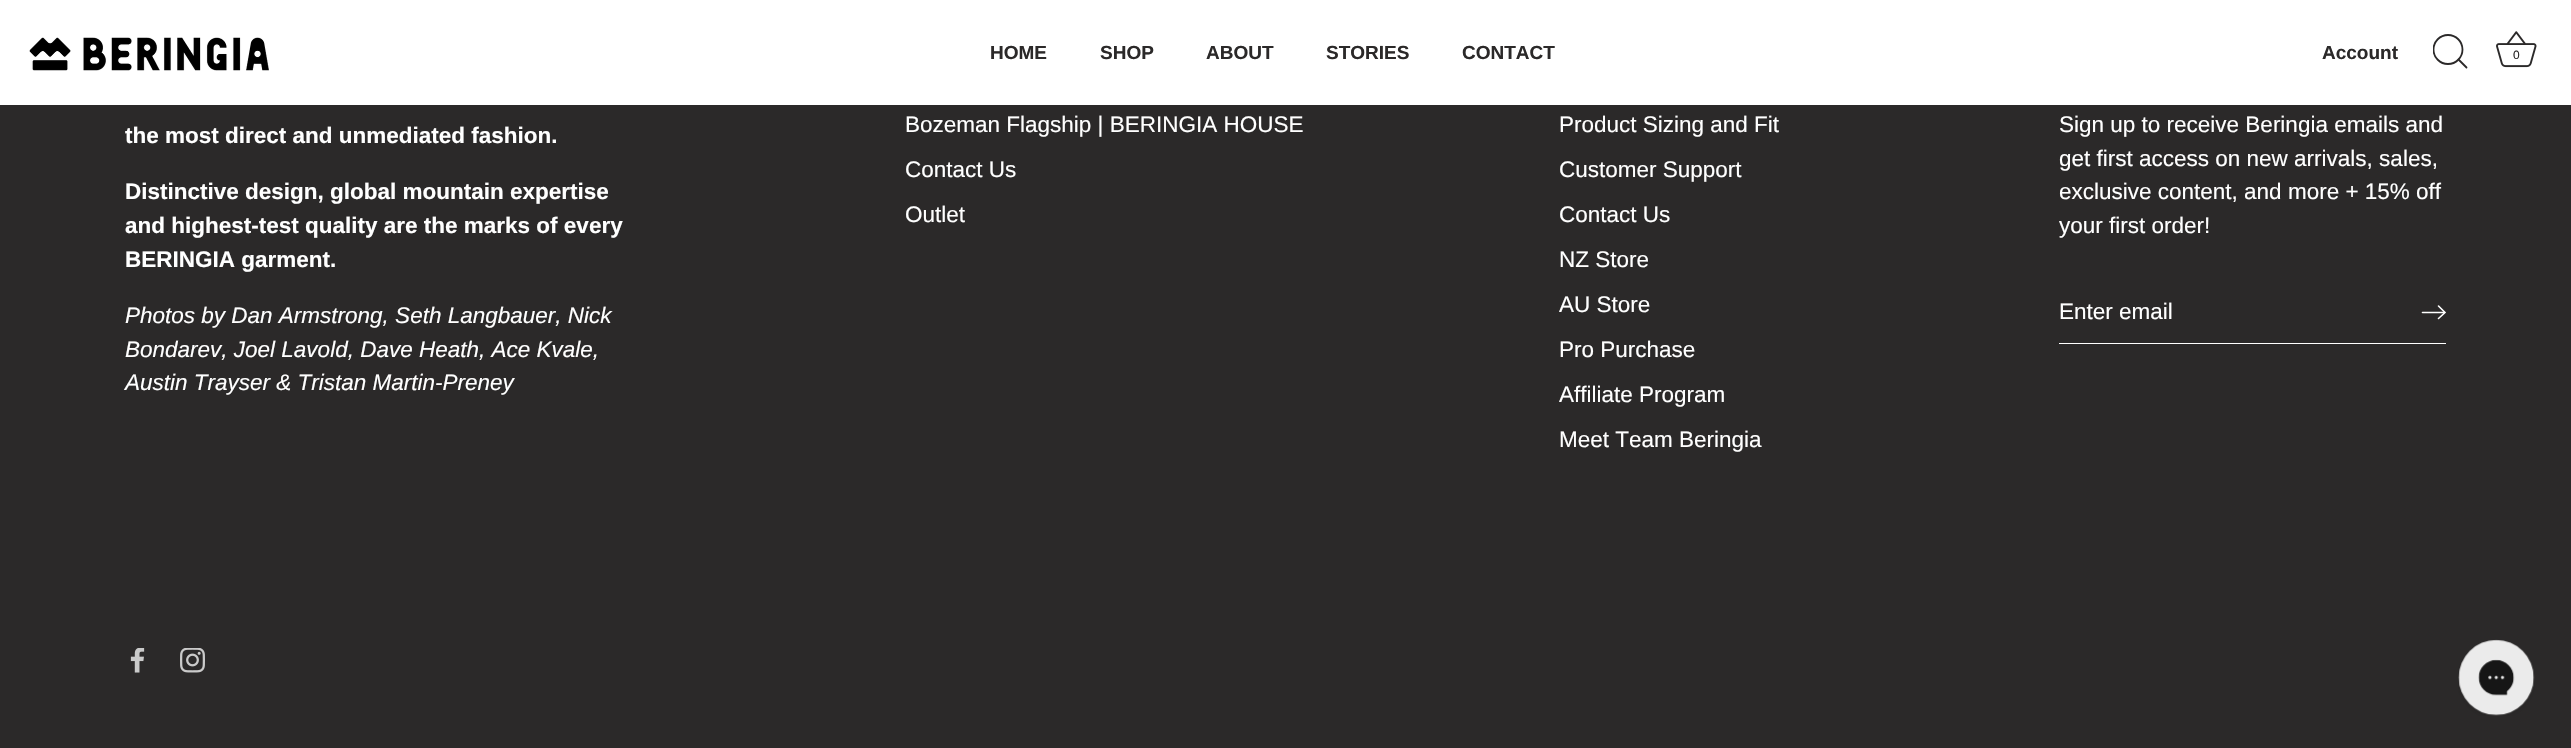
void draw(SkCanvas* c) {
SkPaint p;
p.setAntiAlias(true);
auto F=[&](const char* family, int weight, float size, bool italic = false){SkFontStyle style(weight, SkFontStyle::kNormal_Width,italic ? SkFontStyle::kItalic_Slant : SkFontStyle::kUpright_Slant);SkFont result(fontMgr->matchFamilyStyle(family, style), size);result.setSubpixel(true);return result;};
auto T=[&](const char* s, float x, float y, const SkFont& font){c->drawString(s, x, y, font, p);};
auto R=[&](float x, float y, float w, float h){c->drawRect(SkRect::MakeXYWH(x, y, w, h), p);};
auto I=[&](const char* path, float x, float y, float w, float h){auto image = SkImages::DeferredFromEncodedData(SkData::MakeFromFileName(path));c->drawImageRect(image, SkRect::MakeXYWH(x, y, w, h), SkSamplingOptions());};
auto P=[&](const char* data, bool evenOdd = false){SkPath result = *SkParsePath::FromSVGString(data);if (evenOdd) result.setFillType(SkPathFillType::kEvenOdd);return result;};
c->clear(0xff2b2929);
p.setColor(0xffffffff);
R(0,0,2571,105);
I("1.png",29,37,240,34);
auto f1 = F("Liberation Sans",700,19);
p.setColor(0xff2b2929);
T("HOME",990,59,f1);
T("SHOP",1100,59,f1);
T("ABOUT",1206,59,f1);
T("STORIES",1326,59,f1);
T("CONTACT",1462,59,f1);
T("Account",2322,59,f1);
c->save();
c->clipRect(SkRect::MakeXYWH(2433,34,36,36));
p.setStroke(true);
p.setStrokeWidth(1.8);
c->drawCircle(2448,49.5,14.5,p);
c->restore();
p.setStrokeCap(SkPaint::kRound_Cap);
p.setStrokeJoin(SkPaint::kRound_Join);
c->drawPath(P("M2466.5 67.5l-8-8"),p);
I("2.png",2496,31,41,37);
auto f2 = F("Liberation Sans",400,12);
p.setStroke(false);
T("0",2513,59,f2);
auto f3 = F("Liberation Sans",700,22.5);
p.setColor(0xffffffff);
T("the most direct and unmediated fashion.",125,143,f3);
T("Distinctive design, global mountain expertise",125,199,f3);
T("and highest-test quality are the marks of every",125,233,f3);
T("BERINGIA garment.",125,267,f3);
auto f4 = F("Liberation Sans",400,22.5,true);
T("Photos by Dan Armstrong, Seth Langbauer, Nick",125,323,f4);
T("Bondarev, Joel Lavold, Dave Heath, Ace Kvale,",125,357,f4);
T("Austin Trayser & Tristan Martin-Preney",125,390,f4);
I("3.png",130,648,15,25);
I("4.png",180,648,25,25);
auto f5 = F("Liberation Sans",400,22.5);
T("Bozeman Flagship | BERINGIA HOUSE",905,132,f5);
T("Contact Us",905,177,f5);
T("Outlet",905,222,f5);
T("Product Sizing and Fit",1559,132,f5);
T("Customer Support",1559,177,f5);
T("Contact Us",1559,222,f5);
T("NZ Store",1559,267,f5);
T("AU Store",1559,312,f5);
T("Pro Purchase",1559,357,f5);
T("Affiliate Program",1559,402,f5);
T("Meet Team Beringia",1559,447,f5);
T("Sign up to receive Beringia emails and",2059,132,f5);
T("get first access on new arrivals, sales,",2059,166,f5);
T("exclusive content, and more + 15% off",2059,199,f5);
T("your first order!",2059,233,f5);
R(2059,343,387,1);
T("Enter email",2059,319,f5);
p.setStroke(true);
p.setStrokeWidth(1.6);
p.setStrokeJoin(SkPaint::kMiter_Join);
c->drawPath(P("M2438.5 318.5l6.5-6l-6.5-6.5"),p);
p.setStrokeJoin(SkPaint::kRound_Join);
c->drawPath(P("M2444 312.5h-21.5"),p);
I("5.png",2458,639,77,77);
}
